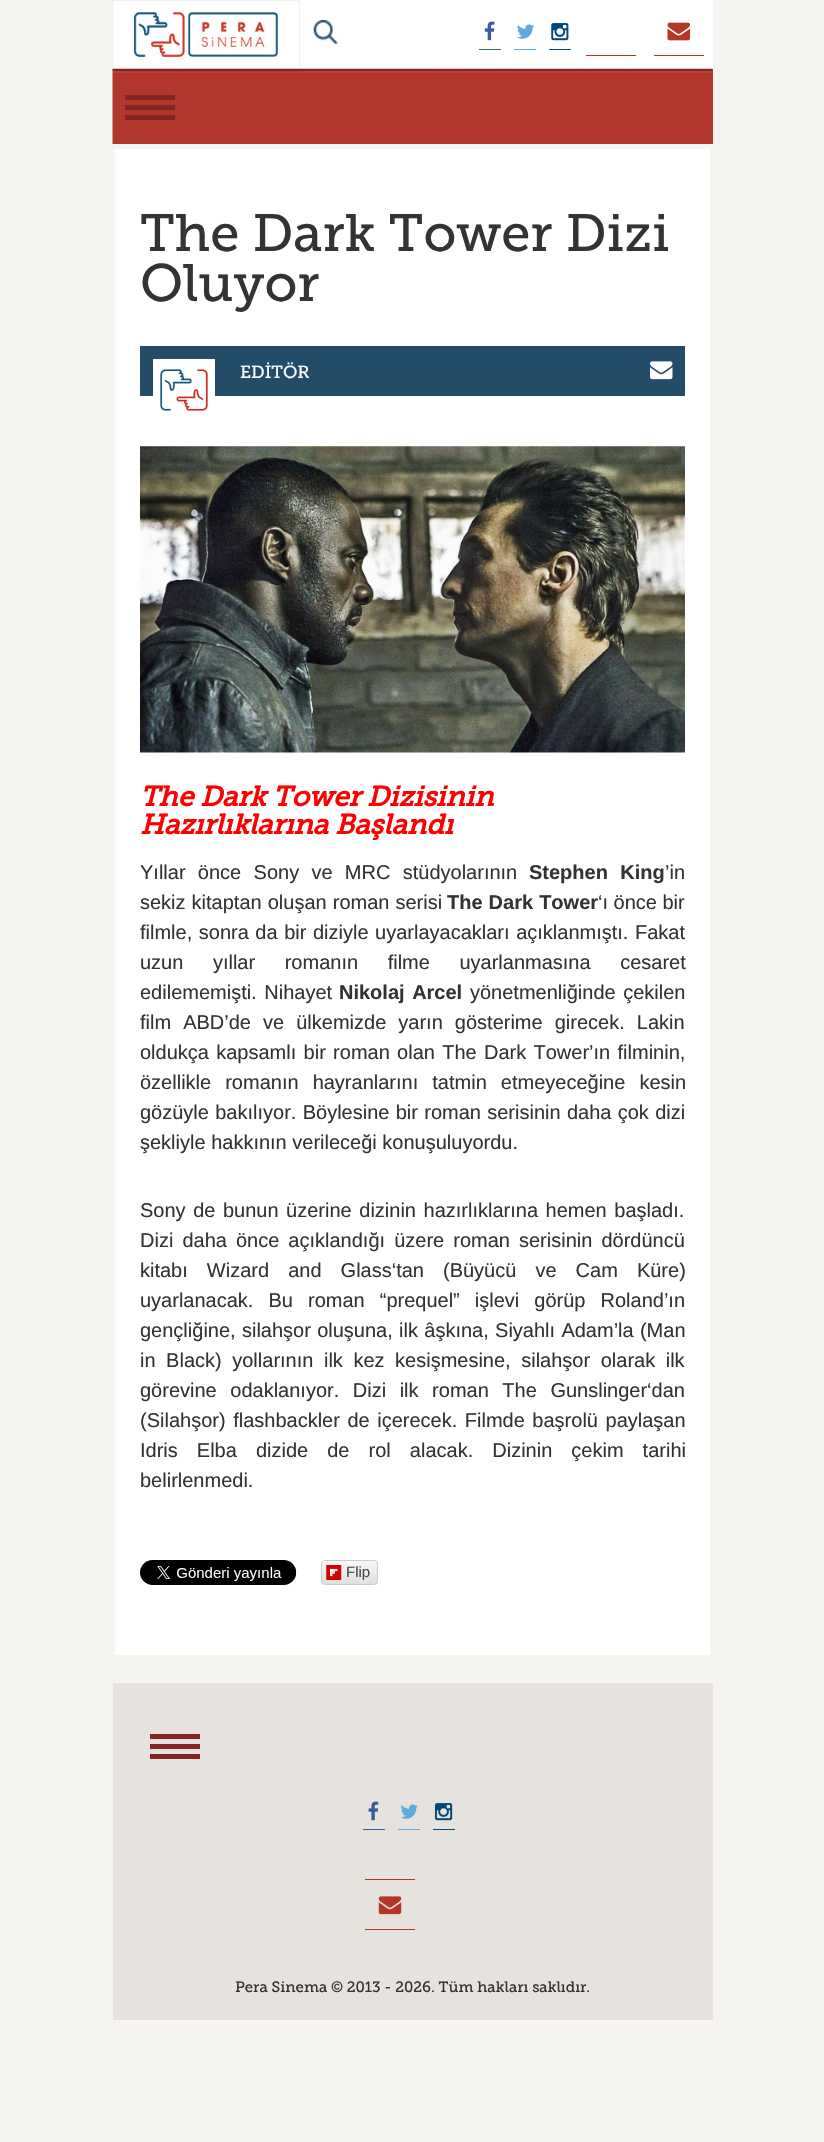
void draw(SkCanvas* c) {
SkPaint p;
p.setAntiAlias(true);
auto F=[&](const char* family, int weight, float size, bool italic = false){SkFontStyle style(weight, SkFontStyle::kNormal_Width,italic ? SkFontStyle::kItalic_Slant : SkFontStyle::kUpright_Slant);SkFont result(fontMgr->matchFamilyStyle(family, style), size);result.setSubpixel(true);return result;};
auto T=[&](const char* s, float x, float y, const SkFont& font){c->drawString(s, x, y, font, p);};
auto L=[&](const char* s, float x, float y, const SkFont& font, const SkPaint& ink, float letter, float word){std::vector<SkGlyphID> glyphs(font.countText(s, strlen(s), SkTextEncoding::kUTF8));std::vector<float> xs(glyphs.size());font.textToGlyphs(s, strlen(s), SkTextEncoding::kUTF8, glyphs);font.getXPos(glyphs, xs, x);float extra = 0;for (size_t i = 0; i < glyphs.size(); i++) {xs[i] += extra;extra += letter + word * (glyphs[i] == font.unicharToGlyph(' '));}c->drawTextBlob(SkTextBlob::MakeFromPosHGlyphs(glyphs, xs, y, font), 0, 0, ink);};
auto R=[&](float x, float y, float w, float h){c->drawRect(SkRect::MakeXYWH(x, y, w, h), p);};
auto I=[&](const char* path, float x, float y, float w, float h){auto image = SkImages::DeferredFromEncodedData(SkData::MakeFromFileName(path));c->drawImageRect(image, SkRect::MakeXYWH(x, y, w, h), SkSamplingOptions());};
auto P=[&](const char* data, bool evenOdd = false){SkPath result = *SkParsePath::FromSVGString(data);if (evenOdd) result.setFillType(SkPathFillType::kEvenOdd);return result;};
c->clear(0xfff6f4f0);
p.setColor(0xffffffff);
R(113,0,600,69);
I("1.png",112,0,188,69);
I("2.png",313,20,25,24);
p.setColor(0xff3c5b9a);
R(479,49,22,1);
I("3.png",484,21,11,20);
p.setColor(0xff5fa9dd);
R(514,49,22,1);
I("4.png",517,24,18,15);
p.setColor(0xff00477b);
R(549,49,22,1);
I("5.png",551,23,18,18);
p.setColor(0xffb33626);
R(654,55,50,1);
I("6.png",667,22,23,19);
R(586,55,50,1);
p.setColor(0xffb1362b);
R(113,69,600,75);
I("7.png",112,68,601,76);
p.setColor(0xff832425);
R(125,95,50,5);
R(125,105,50,5);
R(125,115,50,5);
p.setColor(0xffffffff);
R(115,149,595,1506);
auto f1 = F("Museo Slab",400,52.5);
p.setColor(0xff333333);
T("The Dark Tower Dizi",140,251,f1);
T("Oluyor",140,301,f1);
p.setColor(0xff224c68);
R(140,346,545,50);
p.setColor(0xffffffff);
R(153,359,62,37);
I("8.png",160,369,48,42);
auto f2 = F("Museo Slab",400,17.5);
T("EDİTÖR",240,378,f2);
I("9.png",650,361,23,19);
I("10.png",140,446,545,307);
auto f3 = F("Museo Slab",700,28,true);
p.setColor(0xffff0000);
T("The Dark Tower Dizisinin",140,806,f3);
T("Hazırlıklarına Başlandı",140,834,f3);
auto f4 = F("Liberation Sans",400,20);
p.setColor(0xff333333);
L("Yıllar önce Sony ve MRC stüdyolarının",140,879,f4,p,0,6.75);
auto f5 = F("Liberation Sans",700,20);
L("Stephen King",529,879,f5,p,0,6.75);
T("’in",665,879,f4);
L("sekiz kitaptan oluşan roman serisi",140,909,f4,p,0,.5);
L("The Dark Tower",447,909,f5,p,0,.5);
T("‘ı önce bir",598,909,f4);
L("filmle, sonra da bir diziyle uyarlayacakları açıklanmıştı. Fakat",140,939,f4,p,0,1);
L("uzun yıllar romanın filme uyarlanmasına cesaret",140,969,f4,p,0,24);
L("edilememişti. Nihayet",140,999,f4,p,0,2);
L("Nikolaj Arcel",339,999,f5,p,0,2);
L("yönetmenliğinde çekilen",470,999,f4,p,0,2);
L("film ABD’de ve ülkemizde yarın gösterime girecek. Lakin",140,1029,f4,p,0,6.5);
L("oldukça kapsamlı bir roman olan The Dark Tower’ın filminin,",140,1059,f4,p,0,1.75);
L("özellikle romanın hayranlarını tatmin etmeyeceğine kesin",140,1089,f4,p,0,8.5);
L("gözüyle bakılıyor. Böylesine bir roman serisinin daha çok dizi",140,1119,f4,p,0,.75);
T("şekliyle hakkının verileceği konuşuluyordu.",140,1149,f4);
L("Sony de bunun üzerine dizinin hazırlıklarına hemen başladı.",140,1217,f4,p,0,2);
L("Dizi daha önce açıklandığı üzere roman serisinin dördüncü",140,1247,f4,p,0,3.5);
L("kitabı Wizard and Glass‘tan (Büyücü ve Cam Küre)",140,1277,f4,p,0,13.5);
L("uyarlanacak. Bu roman “prequel” işlevi görüp Roland’ın",140,1307,f4,p,0,9.5);
L("gençliğine, silahşor oluşuna, ilk âşkına, Siyahlı Adam’la (Man",140,1337,f4,p,0,.75);
L("in Black) yollarının ilk kez kesişmesine, silahşor olarak ilk",140,1367,f4,p,0,5);
L("görevine odaklanıyor. Dizi ilk roman The Gunslinger‘dan",140,1397,f4,p,0,8);
L("(Silahşor) flashbackler de içerecek. Filmde başrolü paylaşan",140,1427,f4,p,0,2);
L("Idris Elba dizide de rol alacak. Dizinin çekim tarihi",140,1457,f4,p,0,13.5);
T("belirlenmedi.",140,1487,f4);
I("11.png",140,1560,157,25);
c->save();
c->clipPath(P("M325 1560h49c2 0 4 2 4 4v17c0 2-2 4-4 4h-49c-2 0-4-2-4-4v-17c0-2 2-4 4-4z"),true);
{
const SkColor colors[] = {0xffdfdfdf,0xfff7f7f7};
const float stops[] = {0,1};
const SkPoint ends[] = {{349,1584}, {349,1561}};
p.setShader(SkGradientShader::MakeLinear(ends, colors, stops, 2, SkTileMode::kClamp));
p.setAlpha(255);
}
R(321,1561,57,23);
c->restore();
p.setStroke(true);
p.setStrokeWidth(1);
p.setShader(nullptr);
p.setColor(0xffcccccc);
c->drawRoundRect(SkRect::MakeXYWH(321.5,1560.5,56,24),3.5,3.5,p);
I("12.png",326,1565,16,15);
auto f6 = F("Liberation Sans",400,15);
p.setStroke(false);
p.setColor(0xff474747);
T("Flip",346,1577,f6);
p.setColor(0xffe6e3de);
R(113,1683,600,337);
p.setColor(0xff832425);
R(150,1734,50,5);
R(150,1744,50,5);
R(150,1754,50,5);
p.setColor(0xff3c5b9a);
R(363,1829,22,1);
I("13.png",368,1801,11,20);
p.setColor(0xff5fa9dd);
R(398,1829,22,1);
I("14.png",400,1804,18,15);
p.setColor(0xff00477b);
R(433,1829,22,1);
I("15.png",435,1803,18,18);
p.setColor(0xffb33626);
R(365,1879,50,1);
R(365,1929,50,1);
I("16.png",378,1896,24,19);
auto f7 = F("Museo Slab",400,15);
p.setColor(0xff333333);
T("Pera Sinema © 2013 - 2026. Tüm hakları saklıdır.",235,1992,f7);
}
